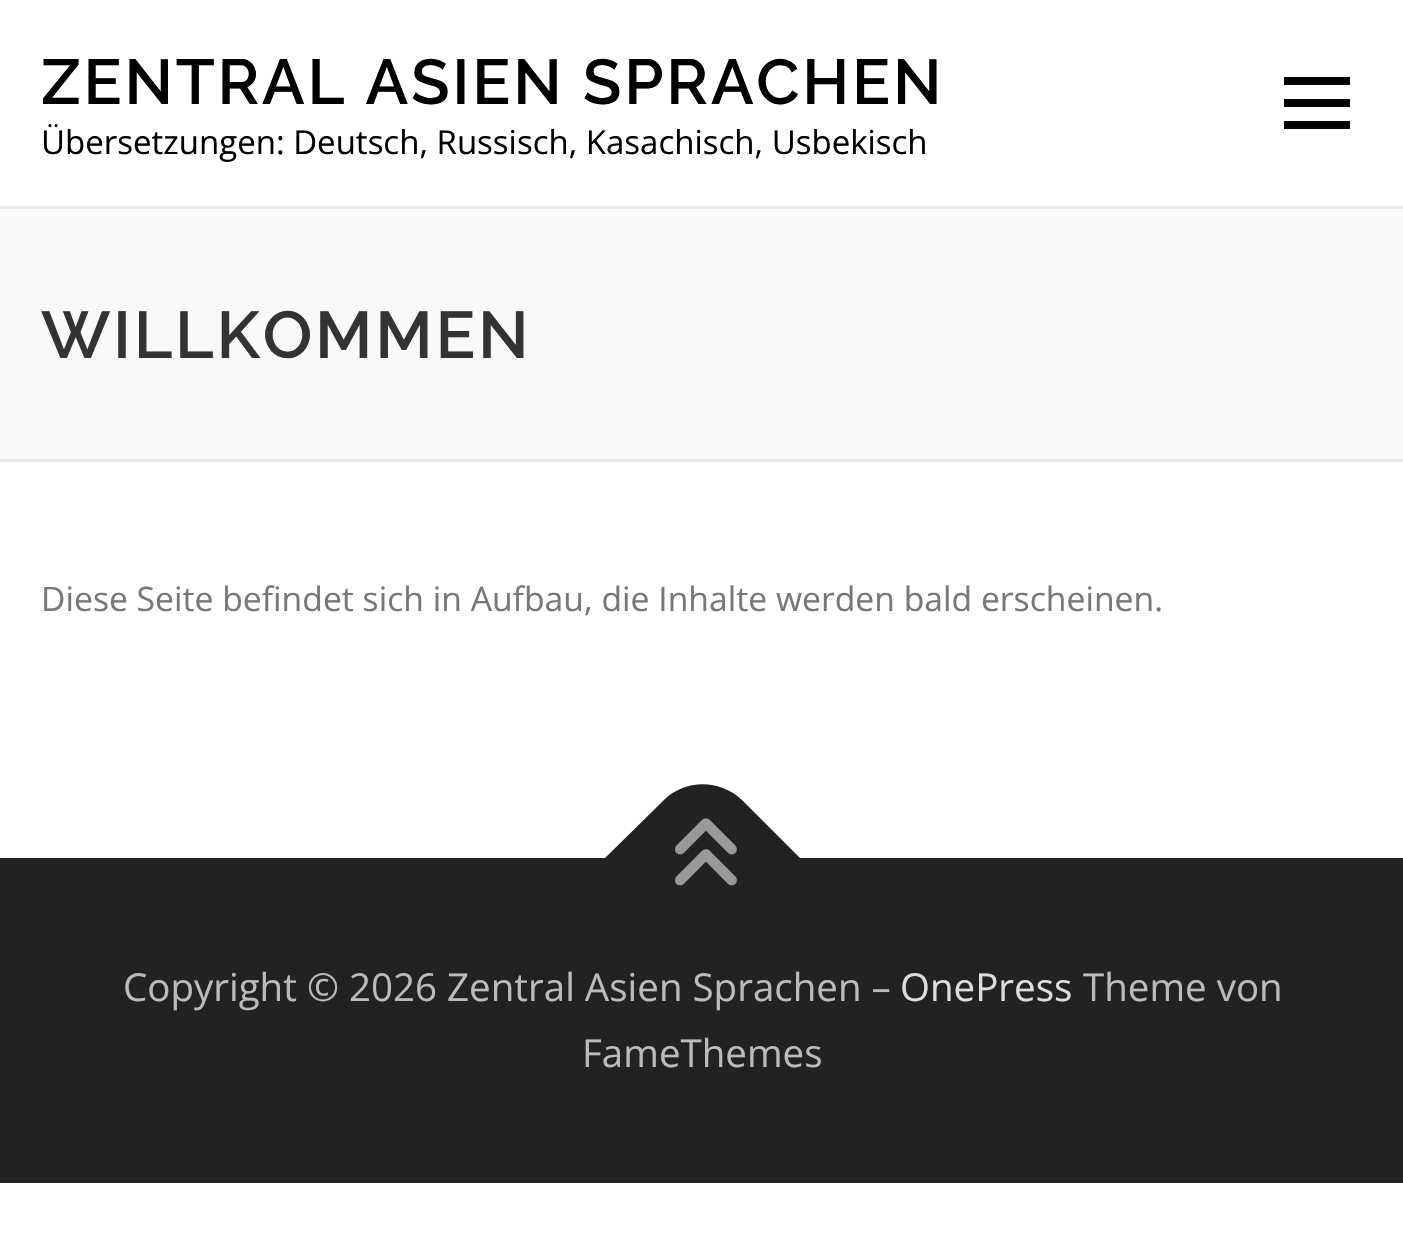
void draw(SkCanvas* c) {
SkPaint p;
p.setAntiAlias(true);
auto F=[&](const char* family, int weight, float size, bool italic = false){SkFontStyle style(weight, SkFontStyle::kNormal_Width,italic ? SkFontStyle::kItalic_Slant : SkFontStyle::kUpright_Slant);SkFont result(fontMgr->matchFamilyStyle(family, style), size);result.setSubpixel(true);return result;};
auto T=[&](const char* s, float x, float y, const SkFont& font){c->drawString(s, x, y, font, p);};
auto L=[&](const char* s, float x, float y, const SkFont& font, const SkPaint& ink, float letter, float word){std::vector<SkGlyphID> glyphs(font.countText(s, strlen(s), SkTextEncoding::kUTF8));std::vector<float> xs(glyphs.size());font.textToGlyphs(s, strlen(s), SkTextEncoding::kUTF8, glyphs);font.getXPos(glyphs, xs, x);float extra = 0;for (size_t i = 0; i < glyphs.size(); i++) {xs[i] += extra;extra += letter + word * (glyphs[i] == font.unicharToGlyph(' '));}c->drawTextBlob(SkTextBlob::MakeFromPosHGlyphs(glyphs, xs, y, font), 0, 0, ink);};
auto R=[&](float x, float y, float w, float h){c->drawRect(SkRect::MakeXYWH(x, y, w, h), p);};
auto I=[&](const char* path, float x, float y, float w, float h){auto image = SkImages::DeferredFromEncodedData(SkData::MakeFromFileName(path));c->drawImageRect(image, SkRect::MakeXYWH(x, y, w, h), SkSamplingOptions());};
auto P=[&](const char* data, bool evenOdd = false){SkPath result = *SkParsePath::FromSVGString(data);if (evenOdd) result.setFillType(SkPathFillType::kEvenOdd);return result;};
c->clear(0xffffffff);
auto f1 = F("Raleway",600,63.25);
p.setColor(0xff000000);
L("ZENTRAL ASIEN SPRACHEN",41,104,f1,p,2.75,0);
auto f2 = F("Open Sans",400,33);
T("Übersetzungen: Deutsch, Russisch, Kasachisch, Usbekisch",41,154,f2);
R(1284,99,66,8);
R(1284,77,66,8);
R(1284,121,66,8);
p.setColor(0xfff8f9f9);
R(0,209,1403,250);
p.setColor(0xffe9e9e9);
R(0,206,1403,3);
R(0,459,1403,3);
auto f3 = F("Raleway",600,66);
p.setColor(0xff333333);
L("WILLKOMMEN",41,358,f3,p,2.75,0);
auto f4 = F("Open Sans",400,33.7);
p.setColor(0xff777777);
T("Diese Seite befindet sich in Aufbau, die Inhalte werden bald erscheinen.",41,611,f4);
p.setColor(0xff222222);
R(0,858,1403,325);
c->drawPath(P("M605 858l59-58c21-21 56-21 78 0l58 58l-97 98z"),p);
I("1.png",675,818,62,68);
auto f5 = F("Open Sans",400,38.5);
p.setColor(0xffbbbbbb);
T("Copyright © 2026 Zentral Asien Sprachen –",123,1001,f5);
p.setColor(0xffdddddd);
T("OnePress",900,1001,f5);
p.setColor(0xffbbbbbb);
T("Theme von",1083,1001,f5);
T("FameThemes",582,1067,f5);
}
